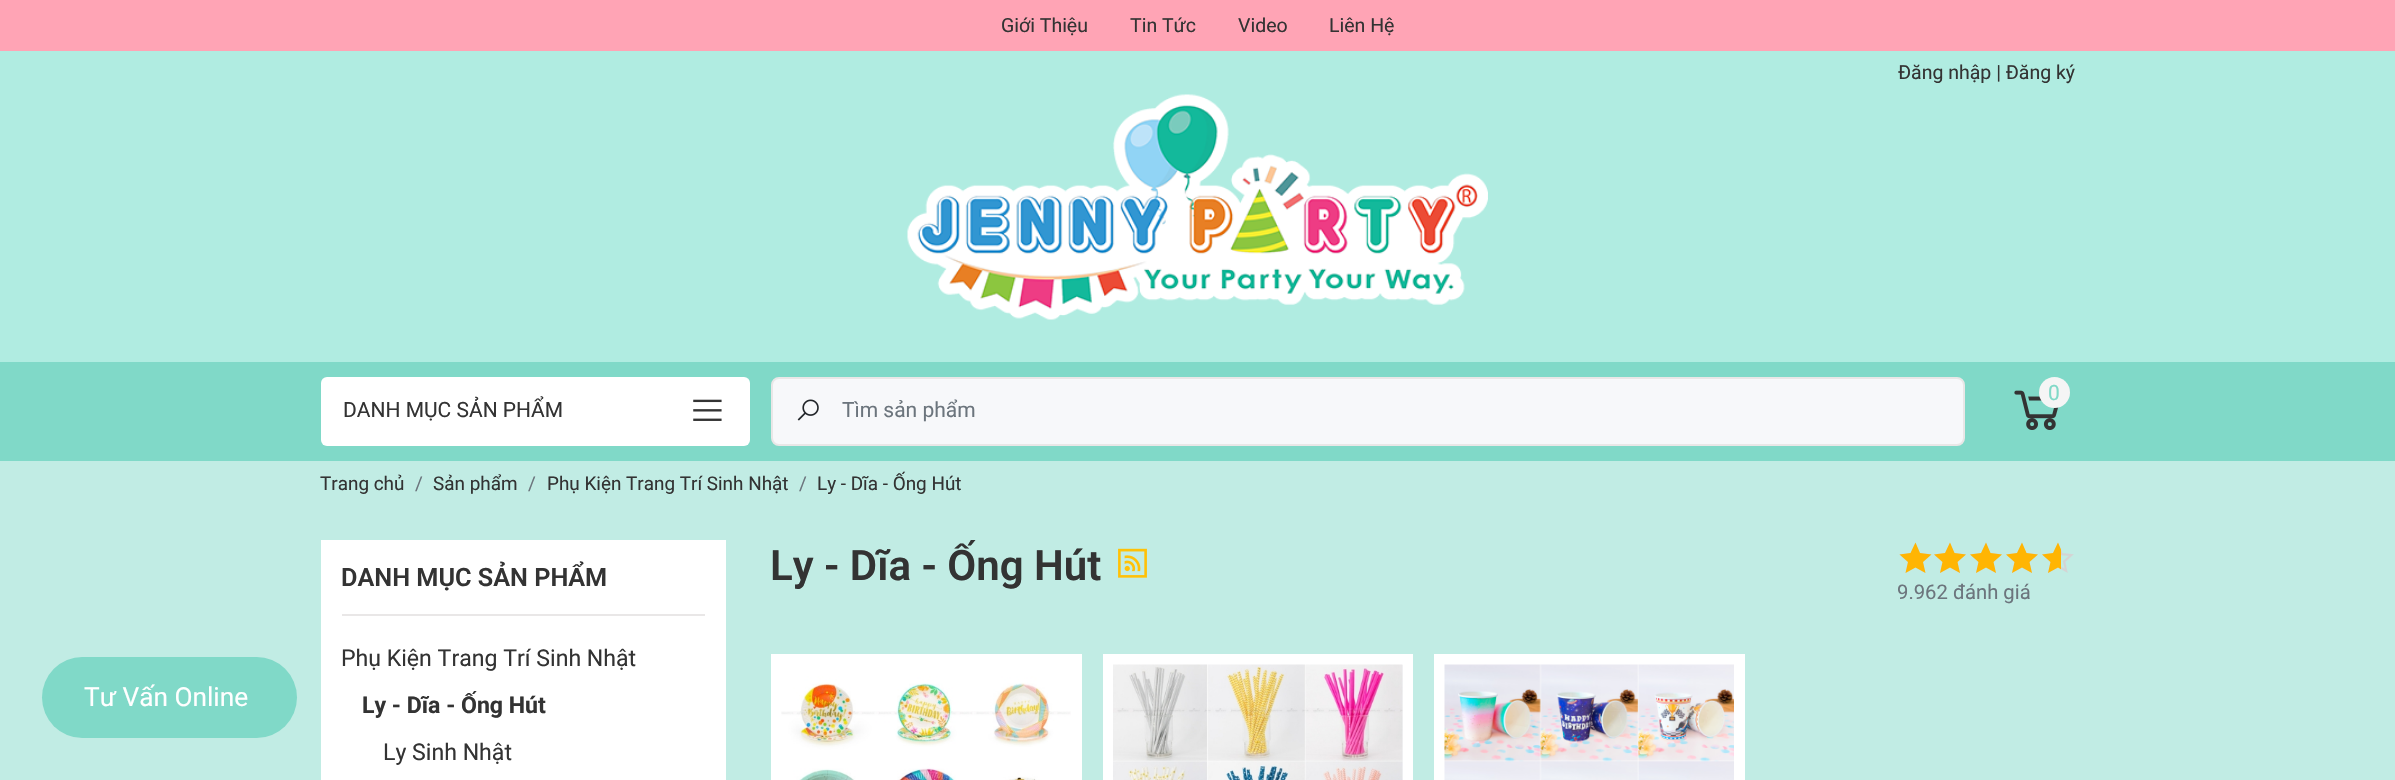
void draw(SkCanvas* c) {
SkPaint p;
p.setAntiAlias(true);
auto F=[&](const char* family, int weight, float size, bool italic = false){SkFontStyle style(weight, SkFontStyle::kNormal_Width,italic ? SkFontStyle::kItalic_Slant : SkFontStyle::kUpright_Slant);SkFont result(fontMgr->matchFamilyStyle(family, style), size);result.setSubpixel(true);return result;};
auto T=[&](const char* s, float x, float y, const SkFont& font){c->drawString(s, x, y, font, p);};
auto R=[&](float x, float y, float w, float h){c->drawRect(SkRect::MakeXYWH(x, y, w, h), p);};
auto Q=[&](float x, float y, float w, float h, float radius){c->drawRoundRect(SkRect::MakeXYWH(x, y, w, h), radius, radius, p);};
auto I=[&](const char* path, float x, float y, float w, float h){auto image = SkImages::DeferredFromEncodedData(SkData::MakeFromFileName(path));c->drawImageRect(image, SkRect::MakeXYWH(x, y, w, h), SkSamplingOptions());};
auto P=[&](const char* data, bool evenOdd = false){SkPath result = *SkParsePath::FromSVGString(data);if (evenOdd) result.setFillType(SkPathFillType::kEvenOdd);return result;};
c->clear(0xffc1ece4);
p.setColor(0xffffa4b5);
R(0,0,2395,51);
auto f1 = F("Roboto",400,19.5);
p.setColor(0xff333333);
T("Giới Thiệu",1001,32,f1);
T("Tin Tức",1130,32,f1);
T("Video",1238,32,f1);
T("Liên Hệ",1329,32,f1);
p.setColor(0xffb0ece1);
R(0,51,2395,311);
p.setColor(0xff333333);
T("Đăng nhập | Đăng ký",1898,79,f1);
I("1.png",907,94,581,226);
p.setColor(0xff80d9c8);
R(0,362,2395,99);
I("2.png",2014,390,45,40);
p.setColor(0xfff5f5f5);
c->drawCircle(2054.5,392.5,15.5,p);
auto f2 = F("Roboto",400,21);
p.setColor(0xff80d9c8);
T("0",2048,400,f2);
p.setColor(0xffffffff);
Q(321,377,429,69,6);
p.setColor(0xff333333);
T("DANH MỤC SẢN PHẨM",343,417,f2);
I("3.png",693,399,29,22);
p.setColor(0xfff7f8fa);
c->drawRoundRect(SkRect::MakeXYWH(772,378,1192,67),7,7,p);
p.setStroke(true);
p.setStrokeWidth(2);
p.setColor(0xffe9e7e7);
c->drawRoundRect(SkRect::MakeXYWH(772,378,1192,67),7,7,p);
I("4.png",797,399,22,22);
p.setStroke(false);
p.setColor(0xff6c757d);
T("Tìm sản phẩm",842,417,f2);
auto f3 = F("Roboto",400,18.9);
p.setColor(0xff333333);
T("Trang chủ",320,490,f3);
p.setColor(0xff6c757d);
T("/",415,490,f3);
p.setColor(0xff333333);
T("Sản phẩm",433,490,f3);
p.setColor(0xff6c757d);
T("/",528,490,f3);
p.setColor(0xff333333);
T("Phụ Kiện Trang Trí Sinh Nhật",547,490,f3);
p.setColor(0xff6c757d);
T("/",799,490,f3);
p.setColor(0xff333333);
T("Ly - Dĩa - Ống Hút",817,490,f3);
p.setColor(0xff80d9c8);
Q(42,657,248,81,40.5);
Q(48,657,249,81,40.5);
auto f4 = F("Roboto",400,26.25);
p.setColor(0xffffffff);
T("Tư Vấn Online",84,706,f4);
R(321,540,405,240);
p.setColor(0xffe9e7e7);
R(342,614,363,2);
auto f5 = F("Roboto",600,25.25);
p.setColor(0xff333333);
T("DANH MỤC SẢN PHẨM",341,586,f5);
auto f6 = F("Roboto",400,23.1);
T("Phụ Kiện Trang Trí Sinh Nhật",341,666,f6);
auto f7 = F("Roboto",700,23.1);
T("Ly - Dĩa - Ống Hút",362,713,f7);
T("Ly Sinh Nhật",383,760,f6);
auto f8 = F("Roboto",600,42);
T("Ly - Dĩa - Ống Hút",770,580,f8);
I("5.png",1118,548,29,30);
I("6.png",1899,543,32,30);
p.setColor(0xffffb503);
c->drawPath(P("M1931.5 554.5l-8.5 7.5l2.5 11l-10-5.5l-10 5.5l2.5-11l-8.5-7.5l11-1.5l5-10.5l4.5 10.5z"),p);
I("7.png",1934,543,32,30);
c->drawPath(P("M1966 554.5l-8.5 7.5l2.5 11l-10-5.5l-10 5.5l2.5-11l-8.5-7.5l11-1.5l5-10.5l4.5 10.5z"),p);
I("7.png",1970,543,32,30);
c->drawPath(P("M2002 554.5l-8.5 7.5l2.5 11l-10-5.5l-10 5.5l2.5-11l-8.5-7.5l11-1.5l5-10.5l4.5 10.5z"),p);
I("7.png",2006,543,32,30);
c->drawPath(P("M2038 554.5l-8.5 7.5l2.5 11l-10-5.5l-10 5.5l2.5-11l-8.5-7.5l11-1.5l5-10.5l4.5 10.5z"),p);
I("7.png",2042,543,32,30);
c->save();
c->clipRect(SkRect::MakeXYWH(1898,542,163,37));
c->drawPath(P("M2074 554.5l-8.5 7.5l2.5 11l-10-5.5l-10 5.5l2.5-11l-8.5-7.5l11-1.5l5-10.5l4.5 10.5z"),p);
c->restore();
auto f9 = F("Roboto",400,20.25);
p.setColor(0xff6c757d);
T("9.962 đánh giá",1897,599,f9);
p.setColor(0xffffffff);
R(771,654,311,126);
I("8.png",781,665,290,115);
R(1103,654,310,126);
p.setColor(0xfff7f8fa);
R(1402,665,1,115);
I("9.png",1113,664,290,116);
p.setColor(0xffffffff);
R(1434,654,311,126);
I("10.png",1444,664,290,116);
}
